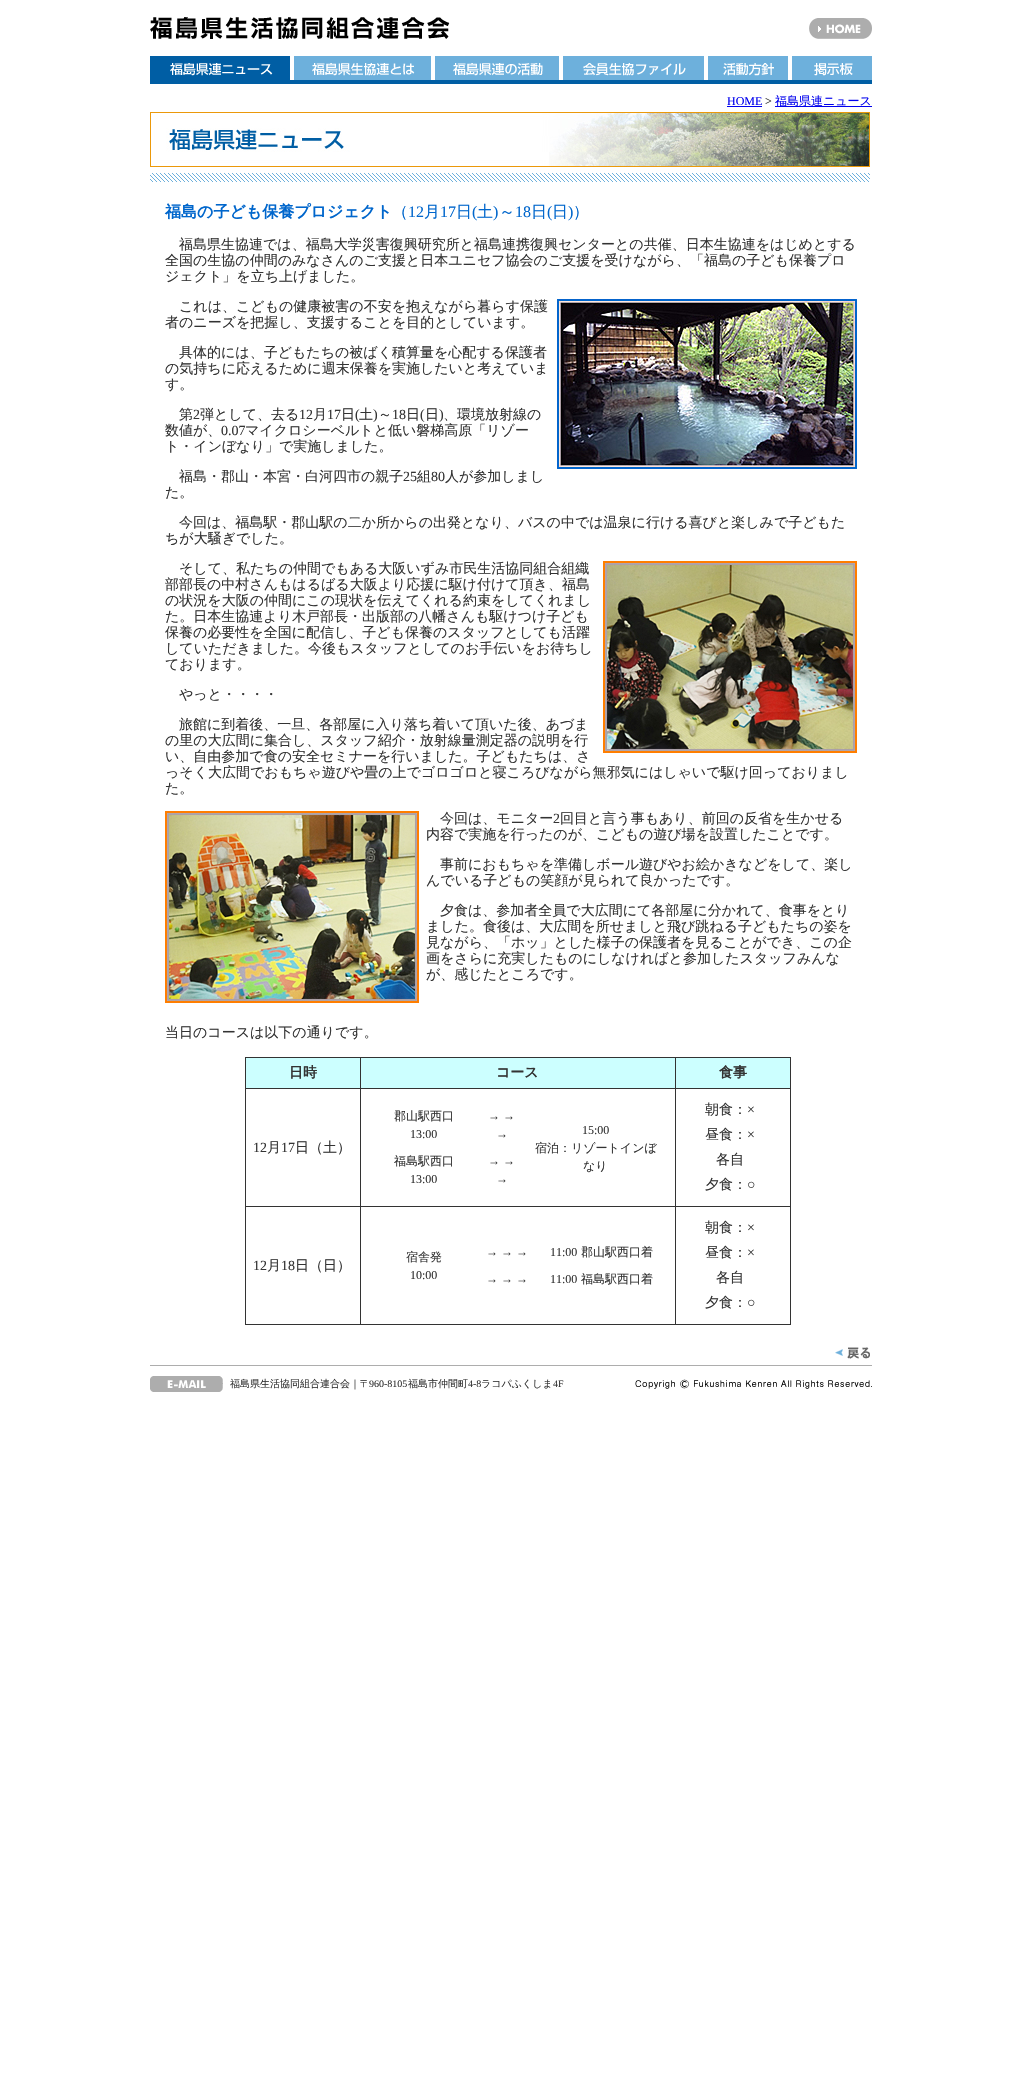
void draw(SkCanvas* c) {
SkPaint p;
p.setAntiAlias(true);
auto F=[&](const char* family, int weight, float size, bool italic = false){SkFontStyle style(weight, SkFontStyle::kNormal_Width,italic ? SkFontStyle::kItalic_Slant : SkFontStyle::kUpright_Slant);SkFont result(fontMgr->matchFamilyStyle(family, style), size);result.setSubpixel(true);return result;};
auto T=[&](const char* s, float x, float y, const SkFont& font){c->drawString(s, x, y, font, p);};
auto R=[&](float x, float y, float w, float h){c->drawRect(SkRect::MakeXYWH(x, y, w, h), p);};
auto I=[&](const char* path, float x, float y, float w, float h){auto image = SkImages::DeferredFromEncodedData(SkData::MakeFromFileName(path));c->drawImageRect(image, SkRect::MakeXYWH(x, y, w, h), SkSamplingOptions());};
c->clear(0xffffffff);
I("1.png",150,17,300,22);
I("2.png",809,18,63,21);
I("3.png",150,56,140,24);
I("4.png",294,56,137,24);
I("5.png",435,56,124,24);
I("6.png",563,56,141,24);
I("7.png",708,56,80,24);
I("8.png",792,56,80,24);
p.setColor(0xff005ea4);
R(150,80,722,4);
auto f1 = F("Liberation Serif",400,12);
p.setColor(0xff0000ee);
T("HOME",727,105,f1);
R(727,106,35,1);
p.setColor(0xff333333);
T(">",765,105,f1);
p.setColor(0xff0000ee);
R(775,106,97,1);
auto f2 = F("WenQuanYi Zen Hei",500,12);
T("福島県連ニュース",775,105,f2);
I("9.png",150,112,720,55);
I("10.png",150,173,720,9);
auto f3 = F("WenQuanYi Zen Hei",700,16);
p.setColor(0xff0066cc);
T("福島の子ども保養プロジェクト",165,217,f3);
auto f4 = F("WenQuanYi Zen Hei",500,16);
T("（",392,217,f4);
auto f5 = F("Liberation Serif",400,16);
T("12",408,217,f5);
T("月",424,217,f4);
T("17",440,217,f5);
T("日",456,217,f4);
T("(",472,217,f5);
T("土",477,217,f4);
T(")",493,217,f5);
T("～",499,217,f4);
T("18",515,217,f5);
T("日",531,217,f4);
T("(",547,217,f5);
T("日",552,217,f4);
T(")",568,217,f5);
T("）",573,217,f4);
auto f6 = F("WenQuanYi Zen Hei",500,14);
p.setColor(0xff333333);
T("福島県生協連では、福島大学災害復興研究所と福島連携復興センターとの共催、日本生協連をはじめとする",179,249,f6);
T("全国の生協の仲間のみなさんのご支援と日本ユニセフ協会のご支援を受けながら、「福島の子ども保養プロ",165,265,f6);
T("ジェクト」を立ち上げました。",165,281,f6);
T("これは、こどもの健康被害の不安を抱えながら暮らす保護",179,311,f6);
I("11.png",557,299,300,170);
T("者のニーズを把握し、支援することを目的としています。",165,327,f6);
T("具体的には、子どもたちの被ばく積算量を心配する保護者",179,357,f6);
T("の気持ちに応えるために週末保養を実施したいと考えていま",165,373,f6);
T("す。",165,389,f6);
T("第",179,419,f6);
auto f7 = F("Liberation Serif",400,14);
T("2",193,419,f7);
T("弾として、去る",200,419,f6);
T("12",299,419,f7);
T("月",313,419,f6);
T("17",327,419,f7);
T("日",341,419,f6);
T("(",355,419,f7);
T("土",359,419,f6);
T(")",373,419,f7);
T("～",378,419,f6);
T("18",392,419,f7);
T("日",406,419,f6);
T("(",420,419,f7);
T("日",425,419,f6);
T(")",439,419,f7);
T("、環境放射線の",443,419,f6);
T("数値が、",165,435,f6);
T("0.07",221,435,f7);
T("マイクロシーベルトと低い磐梯高原「リゾー",245,435,f6);
T("ト・インぼなり」で実施しました。",165,451,f6);
T("福島・郡山・本宮・白河四市の親子",179,481,f6);
T("25",403,481,f7);
T("組",417,481,f6);
T("80",431,481,f7);
T("人が参加しまし",445,481,f6);
T("た。",165,497,f6);
T("今回は、福島駅・郡山駅の二か所からの出発となり、バスの中では温泉に行ける喜びと楽しみで子どもた",179,527,f6);
T("ちが大騒ぎでした。",165,543,f6);
T("そして、私たちの仲間でもある大阪いずみ市民生活協同組合組織",179,573,f6);
I("12.png",603,561,254,192);
T("部部長の中村さんもはるばる大阪より応援に駆け付けて頂き、福島",165,589,f6);
T("の状況を大阪の仲間にこの現状を伝えてくれる約束をしてくれまし",165,605,f6);
T("た。日本生協連より木戸部長・出版部の八幡さんも駆けつけ子ども",165,621,f6);
T("保養の必要性を全国に配信し、子ども保養のスタッフとしても活躍",165,637,f6);
T("していただきました。今後もスタッフとしてのお手伝いをお待ちし",165,653,f6);
T("ております。",165,669,f6);
T("やっと・・・・",179,699,f6);
T("旅館に到着後、一旦、各部屋に入り落ち着いて頂いた後、あづま",179,729,f6);
T("の里の大広間に集合し、スタッフ紹介・放射線量測定器の説明を行",165,745,f6);
T("い、自由参加で食の安全セミナーを行いました。子どもたちは、さ",165,761,f6);
T("っそく大広間でおもちゃ遊びや畳の上でゴロゴロと寝ころびながら無邪気にはしゃいで駆け回っておりまし",165,777,f6);
T("た。",165,793,f6);
I("13.png",165,811,254,192);
T("今回は、モニター",440,823,f6);
T("2",553,823,f7);
T("回目と言う事もあり、前回の反省を生かせる",560,823,f6);
T("内容で実施を行ったのが、こどもの遊び場を設置したことです。",426,839,f6);
T("事前におもちゃを準備しボール遊びやお絵かきなどをして、楽し",440,869,f6);
T("んでいる子どもの笑顔が見られて良かったです。",426,885,f6);
T("夕食は、参加者全員で大広間にて各部屋に分かれて、食事をとり",440,915,f6);
T("ました。食後は、大広間を所せましと飛び跳ねる子どもたちの姿を",426,931,f6);
T("見ながら、「ホッ」とした様子の保護者を見ることができ、この企",426,947,f6);
T("画をさらに充実したものにしなければと参加したスタッフみんな",426,963,f6);
T("が、感じたところです。",426,979,f6);
T("当日のコースは以下の通りです。",165,1037,f6);
p.setStroke(true);
p.setStrokeWidth(1);
c->drawRect(SkRect::MakeXYWH(245.5,1057.5,545,267),p);
p.setStroke(false);
p.setColor(0xffccffff);
R(246,1058,114,30);
p.setColor(0xff333333);
R(360,1058,1,266);
R(246,1088,115,1);
auto f8 = F("WenQuanYi Zen Hei",700,14);
T("日時",289,1077,f8);
p.setColor(0xffccffff);
R(361,1058,314,30);
p.setColor(0xff333333);
R(675,1058,1,266);
R(361,1088,429,1);
T("コース",496,1077,f8);
p.setColor(0xffccffff);
R(676,1058,114,30);
p.setColor(0xff333333);
T("食事",719,1077,f8);
R(246,1206,544,1);
T("12",253,1152,f7);
T("月",267,1152,f6);
T("17",281,1152,f7);
T("日（土）",295,1152,f6);
T("郡山駅西口",394,1120,f2);
T("13:00",410,1138,f1);
T("→ →",488,1120,f1);
T("→",496,1138,f1);
T("15:00",582,1134,f1);
T("宿泊：リゾートインぼ",535,1152,f2);
T("なり",583,1170,f2);
T("福島駅西口",394,1165,f2);
T("13:00",410,1183,f1);
T("→ →",488,1165,f1);
T("→",496,1183,f1);
T("朝食：",705,1114,f6);
T("×",747,1114,f7);
T("昼食：",705,1139,f6);
T("×",747,1139,f7);
T("各自",716,1164,f6);
T("夕食：",705,1189,f6);
T("○",747,1189,f7);
T("12",253,1270,f7);
T("月",267,1270,f6);
T("18",281,1270,f7);
T("日（日）",295,1270,f6);
T("宿舎発",406,1261,f2);
T("10:00",410,1279,f1);
T("→ → →",486,1256,f1);
T("11:00",550,1256,f1);
T("郡山駅西口着",581,1256,f2);
T("→ → →",486,1283,f1);
T("11:00",550,1283,f1);
T("福島駅西口着",581,1283,f2);
T("朝食：",705,1232,f6);
T("×",747,1232,f7);
T("昼食：",705,1257,f6);
T("×",747,1257,f7);
T("各自",716,1282,f6);
T("夕食：",705,1307,f6);
T("○",747,1307,f7);
I("14.png",835,1347,35,12);
p.setColor(0xffadadad);
R(150,1365,722,1);
I("15.png",150,1376,73,16);
auto f9 = F("WenQuanYi Zen Hei",500,10);
p.setColor(0xff333333);
T("福島県生活協同組合連合会｜〒",230,1387,f9);
auto f10 = F("Liberation Serif",400,10);
T("960-8105",369,1387,f10);
T("福島市仲間町",408,1387,f9);
T("4-8",468,1387,f10);
T("ラコパふくしま",481,1387,f9);
T("4F",553,1387,f10);
I("16.png",635,1379,237,10);
}
